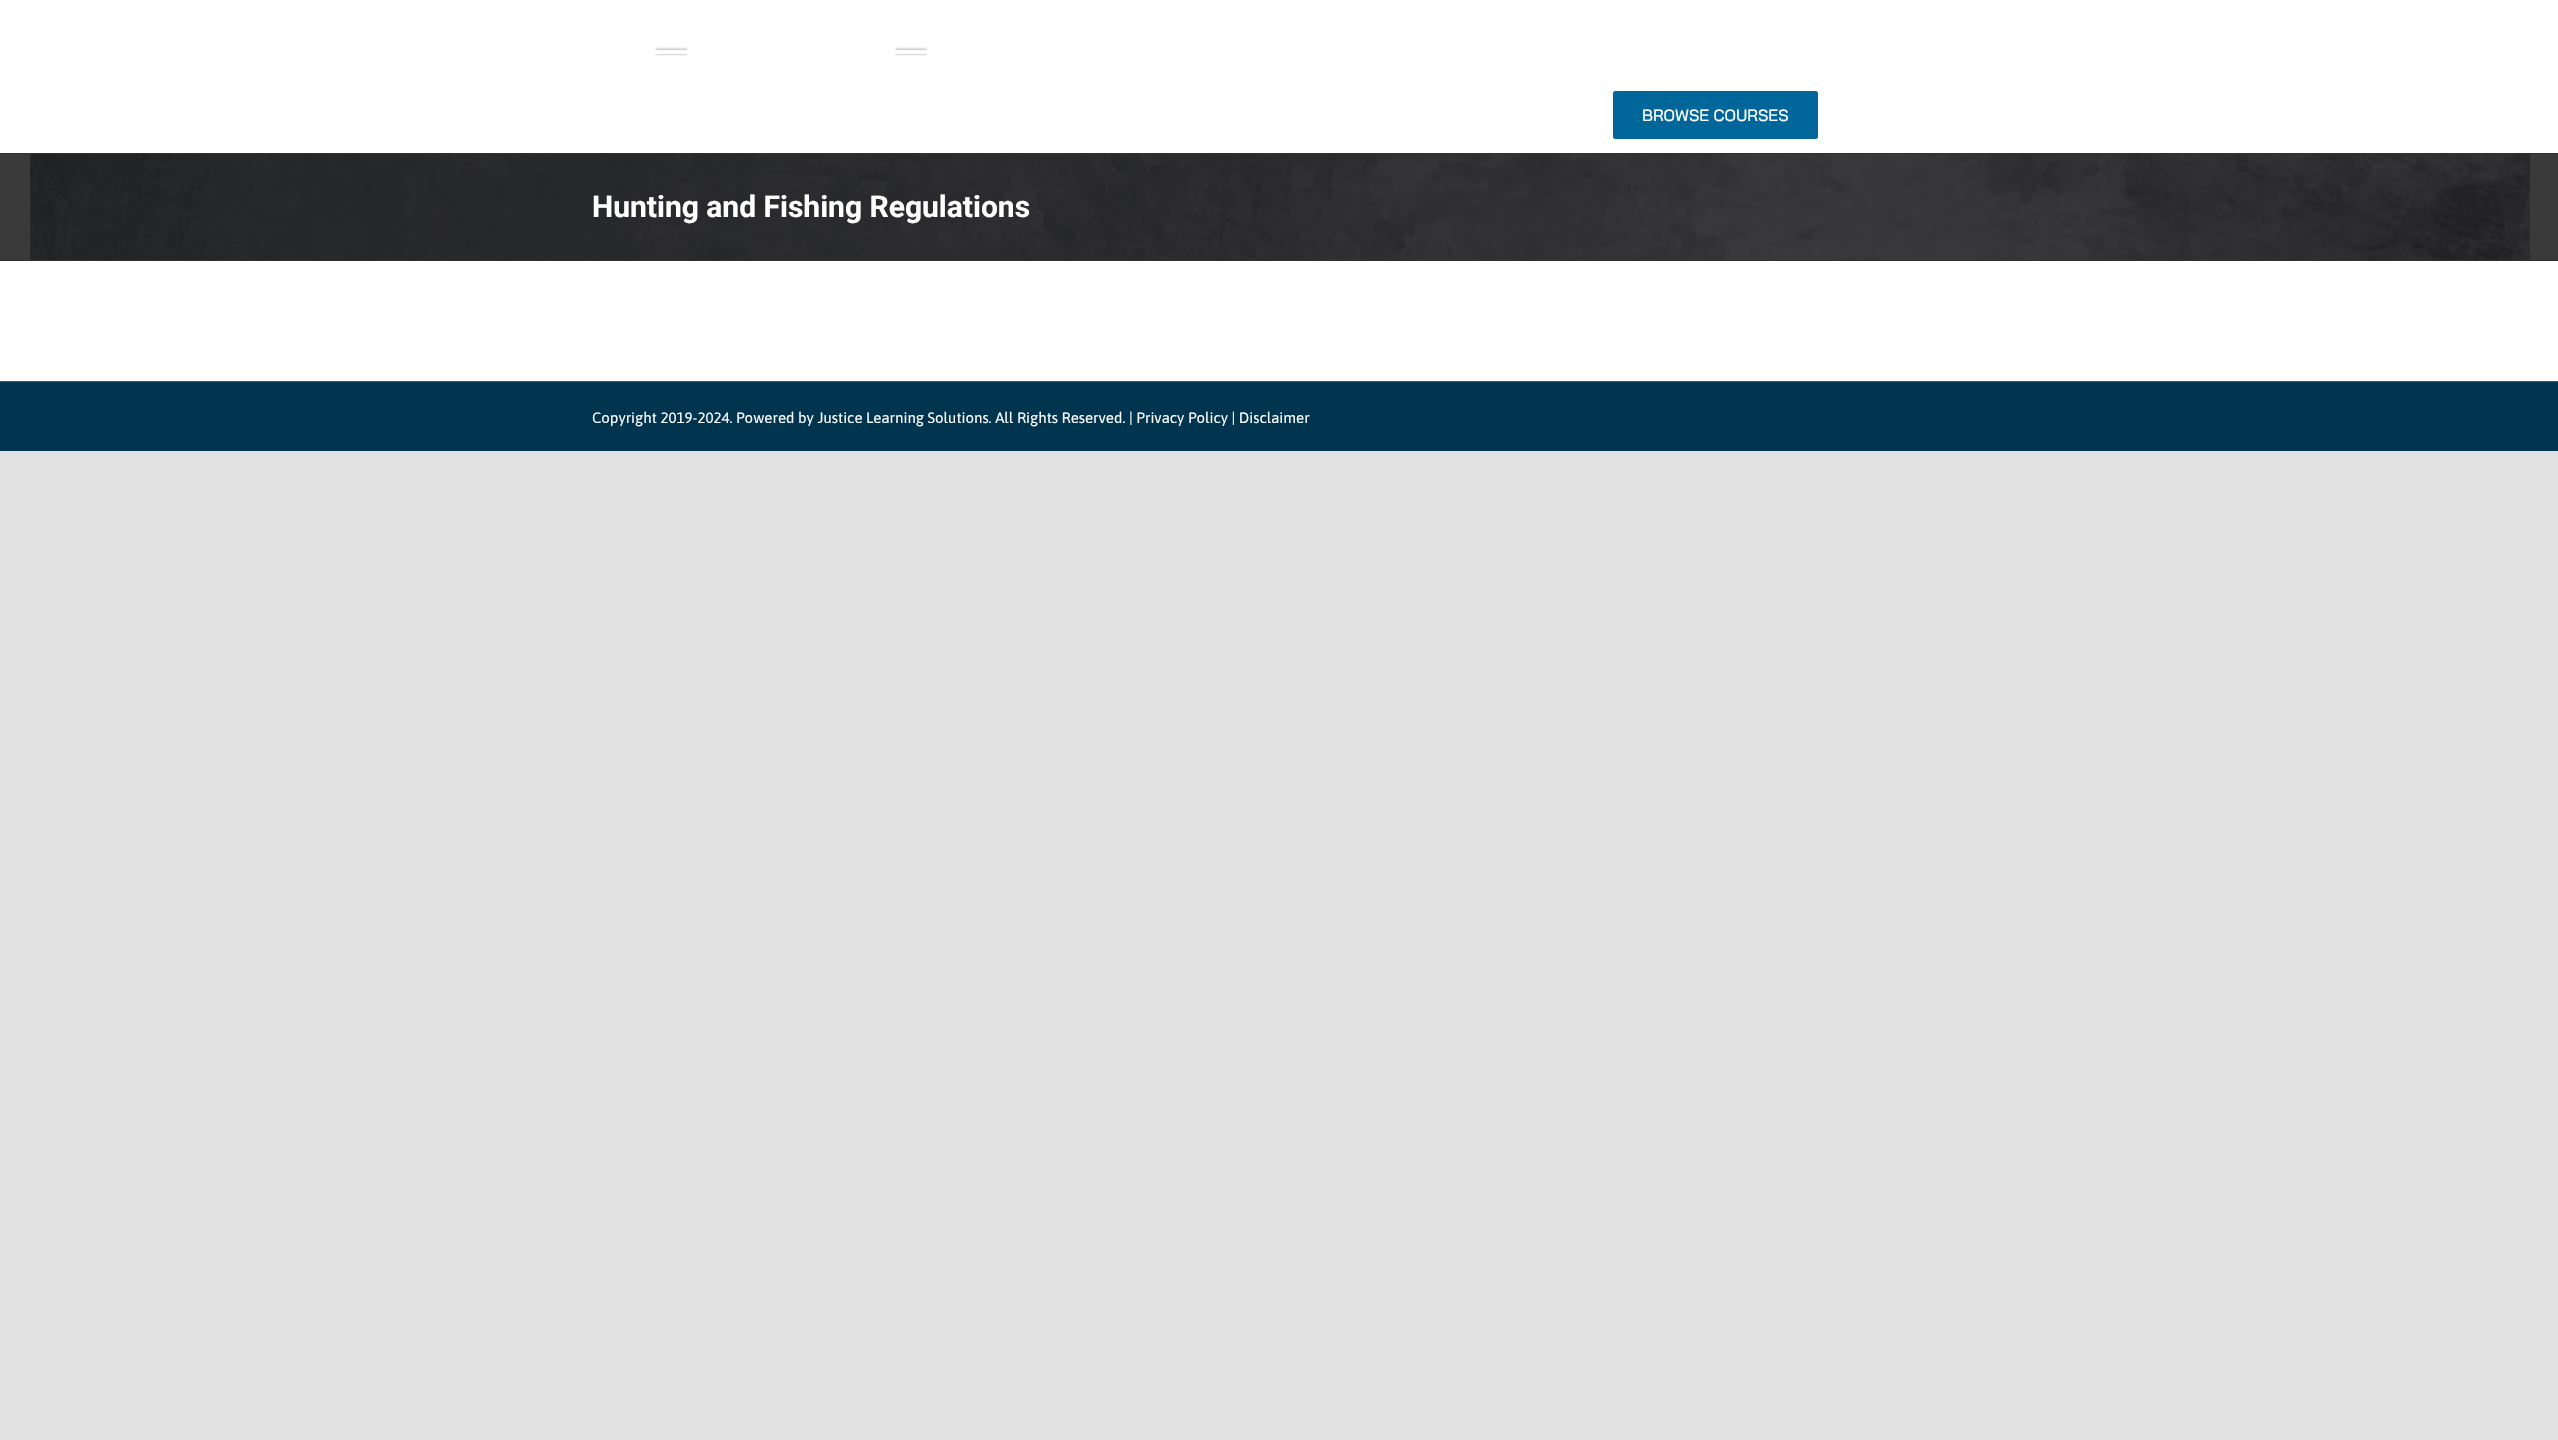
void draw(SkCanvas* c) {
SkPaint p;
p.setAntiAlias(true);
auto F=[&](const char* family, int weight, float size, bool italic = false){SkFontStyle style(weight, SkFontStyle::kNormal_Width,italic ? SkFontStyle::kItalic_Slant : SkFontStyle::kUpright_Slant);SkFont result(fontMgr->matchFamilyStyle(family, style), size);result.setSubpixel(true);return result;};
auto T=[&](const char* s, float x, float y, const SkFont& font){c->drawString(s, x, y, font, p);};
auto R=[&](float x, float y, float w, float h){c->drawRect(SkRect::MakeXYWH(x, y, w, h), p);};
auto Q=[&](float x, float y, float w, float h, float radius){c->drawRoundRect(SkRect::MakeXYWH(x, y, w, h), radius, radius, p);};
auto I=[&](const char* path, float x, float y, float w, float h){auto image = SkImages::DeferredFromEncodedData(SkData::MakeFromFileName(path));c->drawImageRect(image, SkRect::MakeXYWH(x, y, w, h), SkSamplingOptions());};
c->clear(0xffe2e2e2);
p.setColor(0xffffffff);
R(0,0,2558,381);
I("1.png",655,47,273,9);
p.setColor(0xff016699);
Q(1613,91,205,48,2.5);
auto f1 = F("Bai Jamjuree",500,16.25);
p.setColor(0xffffffff);
T("BROWSE COURSES",1642,121,f1);
p.setColor(0xff3a3a3a);
R(0,154,2558,106);
I("2.png",30,154,2500,106);
p.setColor(0xff353030);
R(0,153,2558,1);
R(0,260,2558,1);
auto f2 = F("Roboto",700,30);
p.setColor(0xffffffff);
T("Hunting and Fishing Regulations",592,217,f2);
p.setColor(0xff00344f);
R(0,382,2558,69);
p.setColor(0xff565656);
R(0,381,2558,1);
auto f3 = F("Asap",400,15);
p.setColor(0xffffffff);
T("Copyright 2019-2024. Powered by Justice Learning Solutions. All Rights Reserved. | Privacy Policy | Disclaimer",592,423,f3);
}
